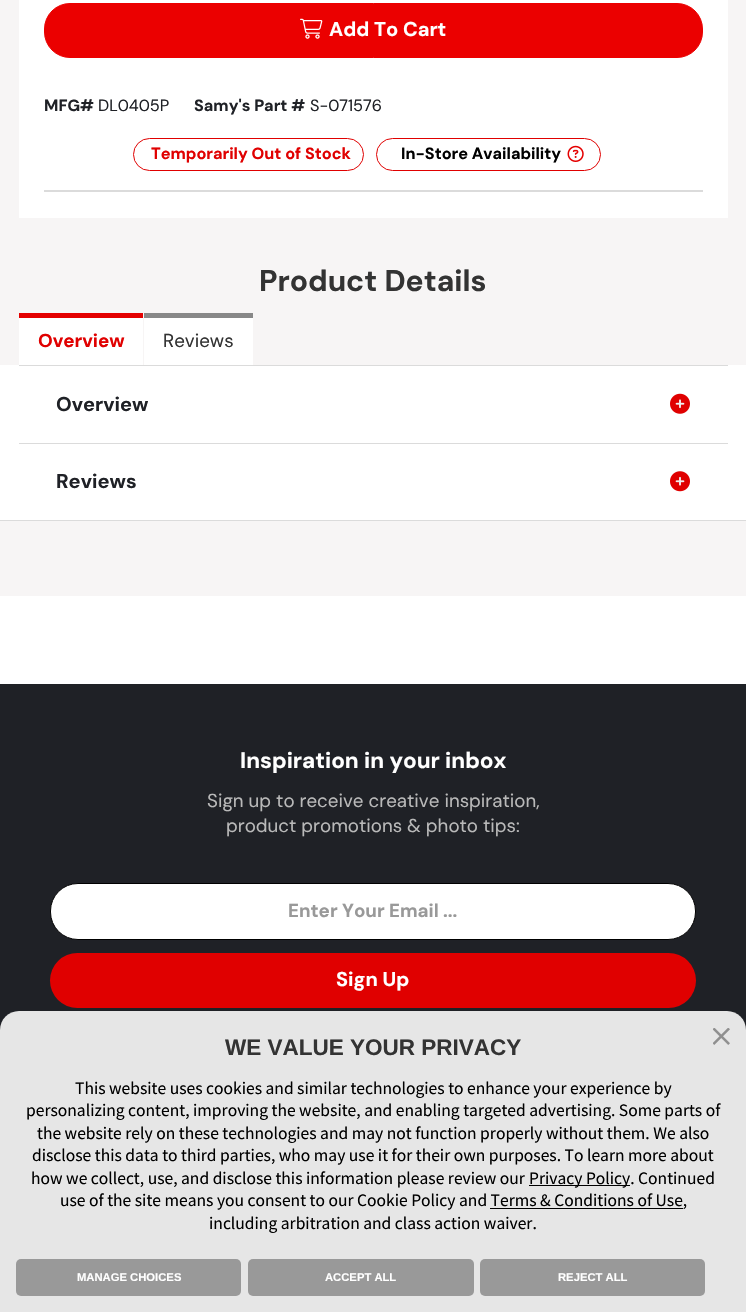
void draw(SkCanvas* c) {
SkPaint p;
p.setAntiAlias(true);
auto F=[&](const char* family, int weight, float size, bool italic = false){SkFontStyle style(weight, SkFontStyle::kNormal_Width,italic ? SkFontStyle::kItalic_Slant : SkFontStyle::kUpright_Slant);SkFont result(fontMgr->matchFamilyStyle(family, style), size);result.setSubpixel(true);return result;};
auto T=[&](const char* s, float x, float y, const SkFont& font){c->drawString(s, x, y, font, p);};
auto R=[&](float x, float y, float w, float h){c->drawRect(SkRect::MakeXYWH(x, y, w, h), p);};
auto Q=[&](float x, float y, float w, float h, float radius){c->drawRoundRect(SkRect::MakeXYWH(x, y, w, h), radius, radius, p);};
auto I=[&](const char* path, float x, float y, float w, float h){auto image = SkImages::DeferredFromEncodedData(SkData::MakeFromFileName(path));c->drawImageRect(image, SkRect::MakeXYWH(x, y, w, h), SkSamplingOptions());};
auto P=[&](const char* data, bool evenOdd = false){SkPath result = *SkParsePath::FromSVGString(data);if (evenOdd) result.setFillType(SkPathFillType::kEvenOdd);return result;};
c->clear(0xffffffff);
p.setColor(0xfff7f5f5);
R(0,0,746,365);
p.setColor(0xffffffff);
R(19,0,709,218);
p.setColor(0xffeb0000);
c->drawRoundRect(SkRect::MakeXYWH(44.5,3.5,658,54),25.5,25.5,p);
p.setStroke(true);
p.setStrokeWidth(1);
c->drawRoundRect(SkRect::MakeXYWH(44.5,3.5,658,54),25.5,25.5,p);
I("1.png",300,18,23,21);
auto f1 = F("DM Sans",700,20);
p.setStroke(false);
p.setColor(0xffffffff);
T("Add To Cart",329,36,f1);
auto f2 = F("DM Sans",700,16.25);
p.setColor(0xff1f2126);
T("MFG#",44,111,f2);
auto f3 = F("DM Sans",400,16.25);
T("DL0405P",98,111,f3);
T("Samy's Part #",194,111,f2);
T("S-071576",310,111,f3);
p.setStroke(true);
p.setColor(0xffe00000);
c->drawRoundRect(SkRect::MakeXYWH(133.5,138.5,230,32),16,16,p);
p.setStroke(false);
T("Temporarily Out of Stock",151,159,f2);
p.setStroke(true);
c->drawRoundRect(SkRect::MakeXYWH(376.5,138.5,224,32),16,16,p);
p.setStroke(false);
p.setColor(0xff000000);
T("In-Store Availability",401,159,f2);
I("2.png",567,145,17,17);
p.setColor(0xffdbdbdb);
R(44,190,659,2);
R(0,520,746,1);
auto f4 = F("DM Sans",700,30);
p.setColor(0xff333333);
T("Product Details",259,291,f4);
p.setColor(0xffffffff);
R(19,318,124,47);
p.setColor(0xffe40000);
R(19,313,124,5);
auto f5 = F("DM Sans",700,18.75);
p.setColor(0xffe00000);
T("Overview",38,347,f5);
p.setColor(0xffffffff);
R(144,318,109,47);
p.setColor(0xff888888);
R(144,313,109,5);
auto f6 = F("DM Sans",400,18.75);
p.setColor(0xff333333);
T("Reviews",163,347,f6);
p.setColor(0xffdbdbdb);
R(19,365,709,1);
p.setColor(0xff1f2126);
T("Overview",56,411,f1);
p.setColor(0xffefefef);
c->drawCircle(680,404,10,p);
I("3.png",670,393,20,21);
p.setColor(0xffdbdbdb);
R(19,443,709,1);
p.setColor(0xff1f2126);
T("Reviews",56,488,f1);
p.setColor(0xffefefef);
c->drawCircle(680,481,10,p);
I("4.png",670,471,20,21);
p.setColor(0xfff7f5f5);
R(0,521,746,75);
p.setColor(0xff1f2126);
R(0,684,746,346);
auto f7 = F("DM Sans",700,22.5);
p.setColor(0xffffffff);
T("Inspiration in your inbox",240,768,f7);
p.setColor(0xffb9b9b9);
T("Sign up to receive creative inspiration,",207,807,f6);
T("product promotions & photo tips:",226,832,f6);
p.setColor(0xffffffff);
c->drawRoundRect(SkRect::MakeXYWH(50.5,883.5,645,56),27.5,27.5,p);
p.setStroke(true);
p.setColor(0xff000000);
c->drawRoundRect(SkRect::MakeXYWH(50.5,883.5,645,56),27.5,27.5,p);
p.setStroke(false);
p.setColor(0xff999999);
T("Enter Your Email ...",288,917,f5);
p.setColor(0xffe00000);
Q(50,953,646,55,27.5);
p.setColor(0xffffffff);
T("Sign Up",336,986,f1);
p.setColor(0xffe6e6e6);
c->drawPath(P("M19 1011h708c10.5 0 19 8.5 19 19v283h-746v-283c0-10.5 8.5-19 19-19z"),p);
I("5.png",713,1028,17,17);
auto f8 = F("Liberation Sans",700,22.5);
p.setColor(0xff333333);
T("WE VALUE YOUR PRIVACY",225,1055,f8);
auto f9 = F("Source Sans Pro",400,17.5);
p.setColor(0xff000000);
T("This website uses cookies and similar technologies to enhance your experience by",75,1094,f9);
T("personalizing content, improving the website, and enabling targeted advertising. Some parts of",26,1116,f9);
T("the website rely on these technologies and may not function properly without them. We also",37,1139,f9);
T("disclose this data to third parties, who may use it for their own purposes. To learn more about",32,1161,f9);
T("how we collect, use, and disclose this information please review our",31,1184,f9);
R(529,1185,101,1);
T("Privacy Policy. Continued",529,1184,f9);
T("use of the site means you consent to our Cookie Policy and Terms & Conditions of Use,",60,1206,f9);
R(490,1208,193,1);
T("including arbitration and class action waiver.",209,1229,f9);
p.setColor(0xff999999);
Q(16,1259,225,37,5);
auto f10 = F("Liberation Sans",700,11.25);
p.setColor(0xffffffff);
T("MANAGE CHOICES",77,1281,f10);
p.setColor(0xff999999);
Q(248,1259,226,37,5);
p.setColor(0xffffffff);
T("ACCEPT ALL",325,1281,f10);
p.setColor(0xff999999);
Q(480,1259,225,37,5);
p.setColor(0xffffffff);
T("REJECT ALL",558,1281,f10);
}
